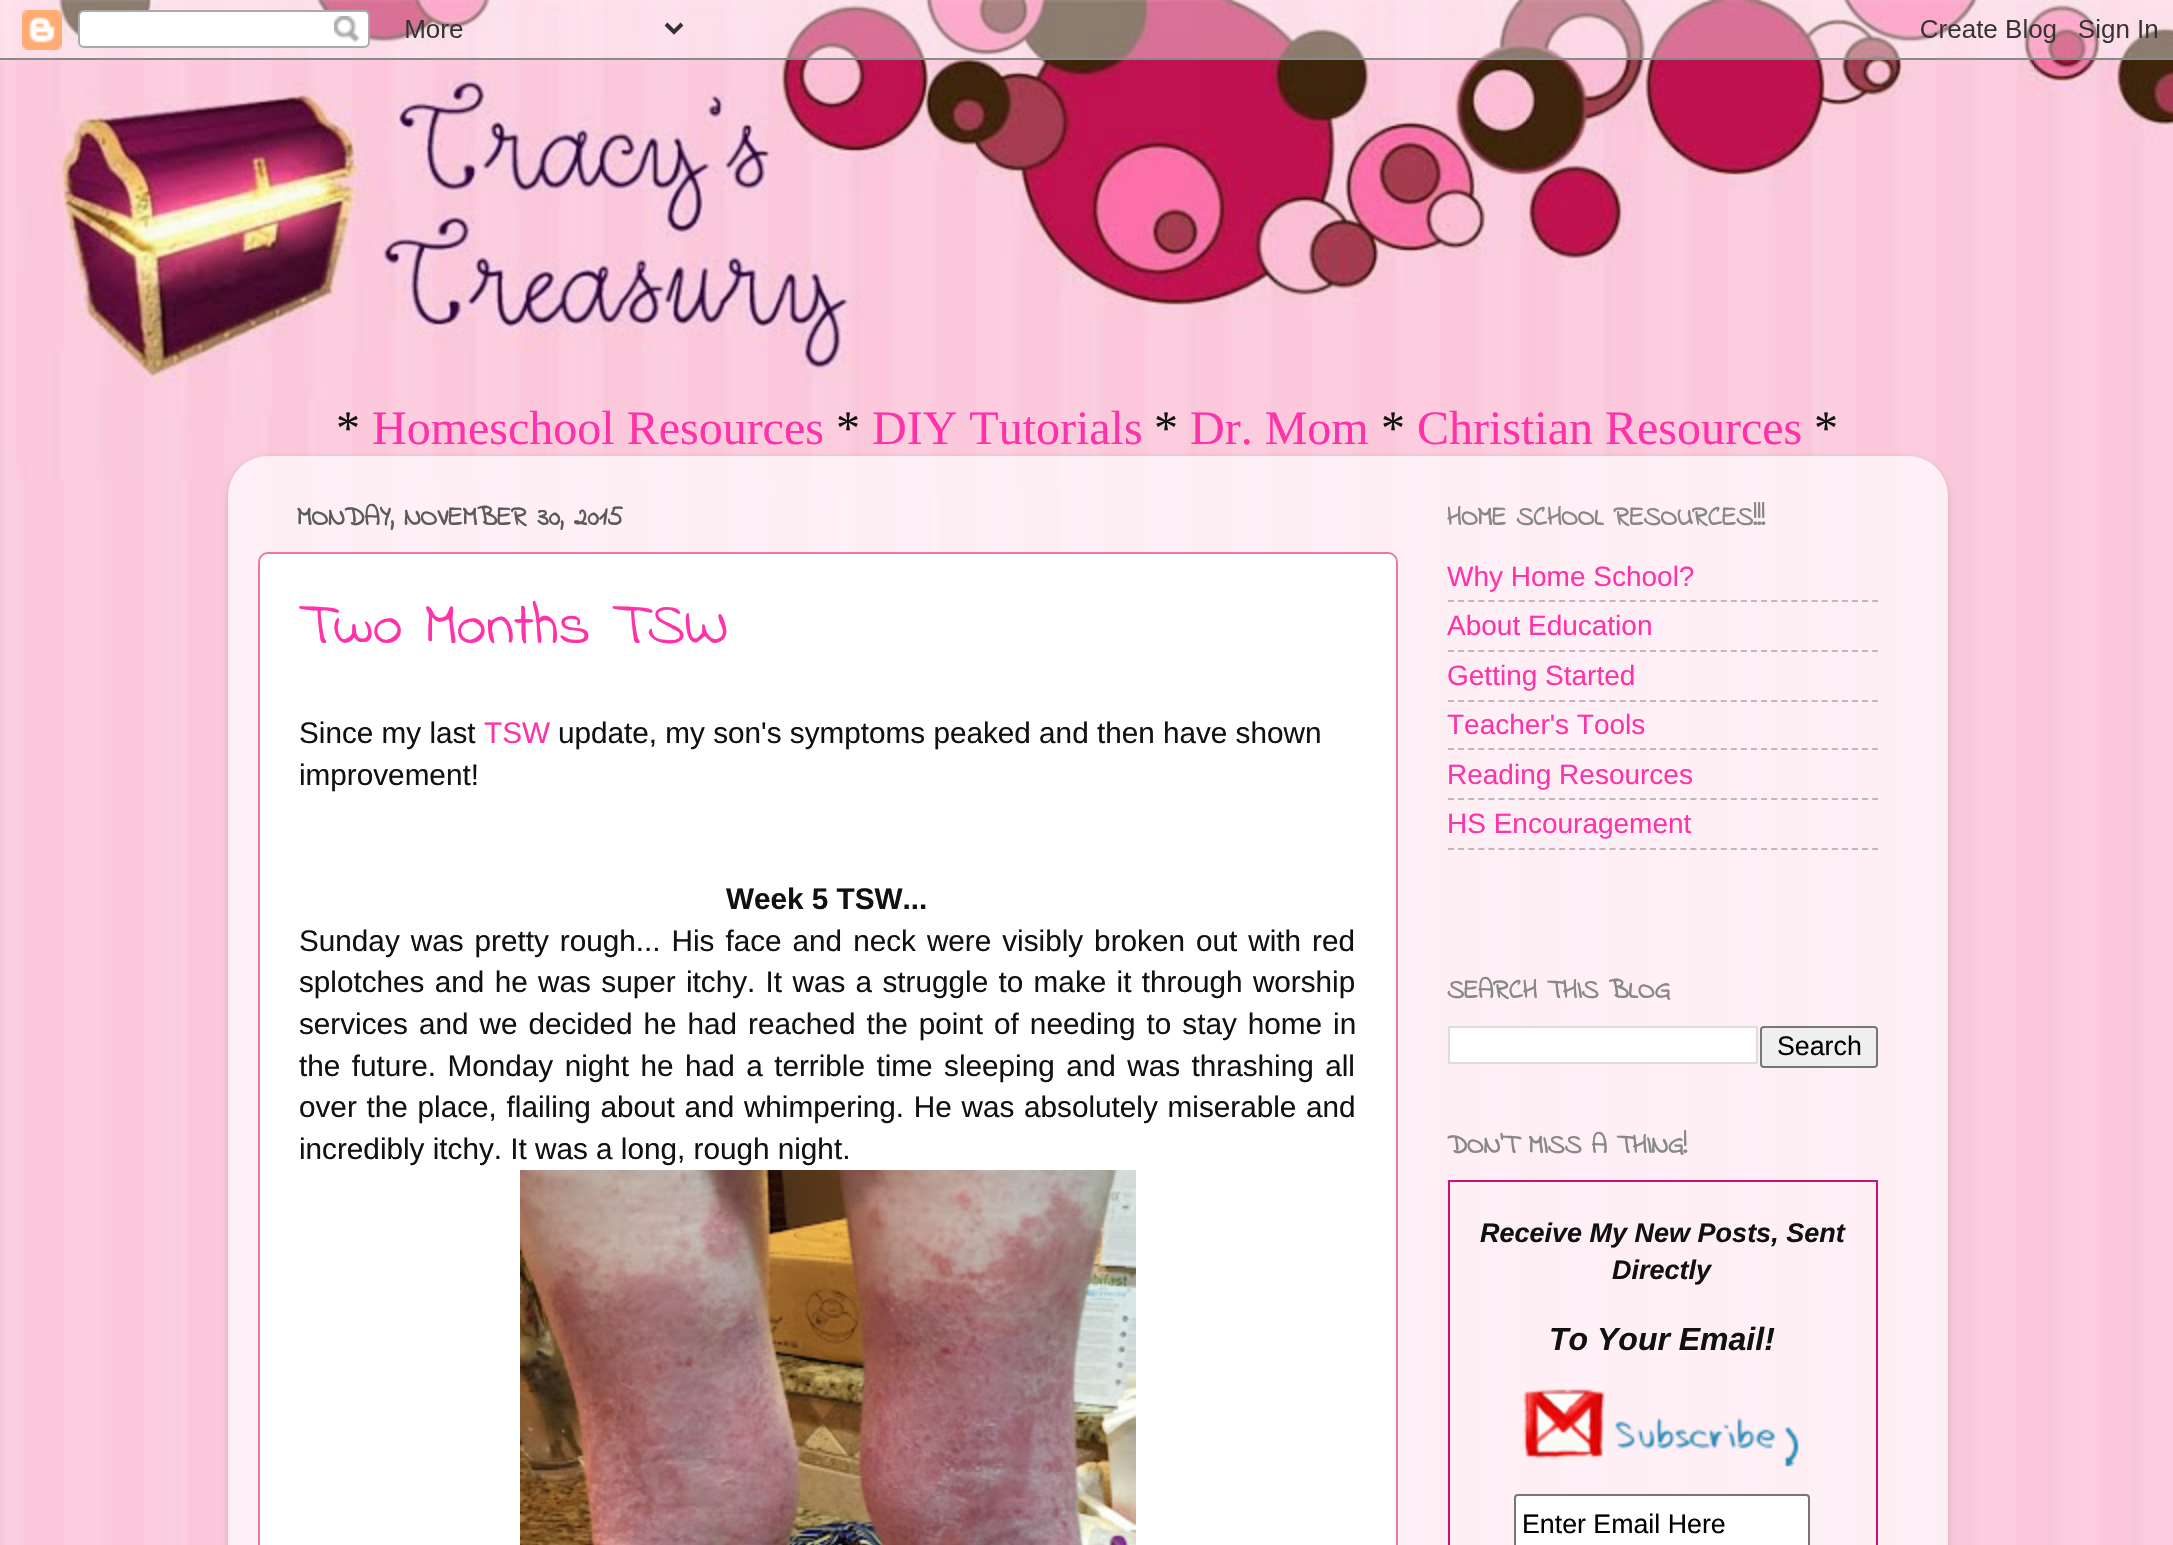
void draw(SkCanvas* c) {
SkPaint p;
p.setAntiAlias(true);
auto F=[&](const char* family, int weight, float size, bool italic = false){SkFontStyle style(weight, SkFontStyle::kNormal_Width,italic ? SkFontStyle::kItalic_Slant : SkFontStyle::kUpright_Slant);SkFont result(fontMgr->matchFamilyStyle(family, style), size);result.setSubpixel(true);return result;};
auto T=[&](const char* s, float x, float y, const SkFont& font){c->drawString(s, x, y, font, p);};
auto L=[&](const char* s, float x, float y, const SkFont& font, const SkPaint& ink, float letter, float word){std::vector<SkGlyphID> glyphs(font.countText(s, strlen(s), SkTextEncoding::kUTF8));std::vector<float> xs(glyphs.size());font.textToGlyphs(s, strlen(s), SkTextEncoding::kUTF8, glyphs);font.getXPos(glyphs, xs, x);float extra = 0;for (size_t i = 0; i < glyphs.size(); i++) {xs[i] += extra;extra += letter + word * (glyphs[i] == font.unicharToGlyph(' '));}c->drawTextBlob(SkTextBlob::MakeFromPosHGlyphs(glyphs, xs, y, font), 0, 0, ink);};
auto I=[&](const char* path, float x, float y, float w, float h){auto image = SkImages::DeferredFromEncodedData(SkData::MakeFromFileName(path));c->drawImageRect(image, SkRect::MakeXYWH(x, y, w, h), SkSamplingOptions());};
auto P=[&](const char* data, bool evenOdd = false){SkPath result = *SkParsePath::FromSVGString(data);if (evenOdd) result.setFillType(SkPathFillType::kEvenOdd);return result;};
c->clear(0xffffffff);
I("1.png",0,0,2173,1545);
I("2.png",0,0,2173,60);
auto f1 = F("Liberation Serif",400,48);
p.setColor(0xff111111);
T("*",336,444,f1);
p.setColor(0xffff32a9);
T("Homeschool Resources",372,444,f1);
p.setColor(0xff111111);
T("*",836,444,f1);
p.setColor(0xffff32a9);
T("DIY Tutorials",872,444,f1);
p.setColor(0xff111111);
T("*",1154,444,f1);
p.setColor(0xffff32a9);
T("Dr. Mom",1190,444,f1);
p.setColor(0xff111111);
T("*",1381,444,f1);
p.setColor(0xffff32a9);
T("Christian Resources",1417,444,f1);
p.setColor(0xff111111);
T("*",1814,444,f1);
c->save();
c->clipPath(P("M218 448h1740v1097h-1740zm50 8h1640c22 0 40 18 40 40v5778h-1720v-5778c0-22 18-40 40-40z",true),true);
p.setColor(0x26000000);
p.setMaskFilter(SkMaskFilter::MakeBlur(kNormal_SkBlurStyle, 3));
c->drawRoundRect(SkRect::MakeXYWH(228,458,1720,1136),40,40,p);
p.setMaskFilter(nullptr);
c->restore();
I("3.png",228,456,1720,1089);
auto f2 = F("Indie Flower",700,27);
p.setColor(0xff5b5b5b);
T("MONDAY, NOVEMBER 30, 2015",297,525,f2);
p.setColor(0xffffffff);
c->drawRoundRect(SkRect::MakeXYWH(259,553,1138,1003),9,9,p);
p.setStroke(true);
p.setStrokeWidth(2);
p.setColor(0xffee77aa);
c->drawRoundRect(SkRect::MakeXYWH(259,553,1138,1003),9,9,p);
auto f3 = F("Indie Flower",400,60);
p.setStroke(false);
p.setColor(0xffff32a9);
T("Two Months TSW",299,643,f3);
auto f4 = F("Liberation Sans",400,29.7);
p.setColor(0xff111111);
T("Since my last",299,743,f4);
p.setColor(0xffff32a9);
T("TSW",484,743,f4);
p.setColor(0xff111111);
T("update, my son's symptoms peaked and then have shown",558,743,f4);
T("improvement!",299,785,f4);
auto f5 = F("Liberation Sans",700,29.7);
T("Week 5 TSW...",726,909,f5);
L("Sunday was pretty rough... His face and neck were visibly broken out with red",299,951,f4,p,0,2.75);
L("splotches and he was super itchy. It was a struggle to make it through worship",299,992,f4,p,0,2.1);
L("services and we decided he had reached the point of needing to stay home in",299,1034,f4,p,0,2.75);
L("the future. Monday night he had a terrible time sleeping and was thrashing all",299,1076,f4,p,0,3.25);
L("over the place, flailing about and whimpering. He was absolutely miserable and",299,1117,f4,p,0,1.5);
T("incredibly itchy. It was a long, rough night.",299,1159,f4);
I("4.png",520,1170,616,375);
p.setColor(0xff888888);
T("HOME SCHOOL RESOURCES!!!",1447,525,f2);
auto f6 = F("Liberation Sans",400,28);
p.setColor(0xffff32a9);
T("Why Home School?",1447,586,f6);
p.setStroke(true);
p.setColor(0x80808080);
p.setPathEffect(SkDashPathEffect::Make({{6,4.1f}}, 0));
c->drawPath(P("M1448 601h430"),p);
p.setPathEffect(nullptr);
p.setStroke(false);
p.setColor(0xffff32a9);
T("About Education",1447,635,f6);
p.setStroke(true);
p.setColor(0x80808080);
p.setPathEffect(SkDashPathEffect::Make({{6,4.1f}}, 0));
c->drawPath(P("M1448 651h430"),p);
p.setPathEffect(nullptr);
p.setStroke(false);
p.setColor(0xffff32a9);
T("Getting Started",1447,685,f6);
p.setStroke(true);
p.setColor(0x80808080);
p.setPathEffect(SkDashPathEffect::Make({{6,4.1f}}, 0));
c->drawPath(P("M1448 701h430"),p);
p.setPathEffect(nullptr);
p.setStroke(false);
p.setColor(0xffff32a9);
T("Teacher's Tools",1447,734,f6);
p.setStroke(true);
p.setColor(0x80808080);
p.setPathEffect(SkDashPathEffect::Make({{6,4.1f}}, 0));
c->drawPath(P("M1448 749h430"),p);
p.setPathEffect(nullptr);
p.setStroke(false);
p.setColor(0xffff32a9);
T("Reading Resources",1447,784,f6);
p.setStroke(true);
p.setColor(0x80808080);
p.setPathEffect(SkDashPathEffect::Make({{6,4.1f}}, 0));
c->drawPath(P("M1448 799h430"),p);
p.setPathEffect(nullptr);
p.setStroke(false);
p.setColor(0xffff32a9);
T("HS Encouragement",1447,833,f6);
p.setStroke(true);
p.setColor(0x80808080);
p.setPathEffect(SkDashPathEffect::Make({{6,4.1f}}, 0));
c->drawPath(P("M1448 849h430"),p);
p.setPathEffect(nullptr);
p.setStroke(false);
p.setColor(0xff888888);
T("SEARCH THIS BLOG",1447,998,f2);
p.setColor(0xffffffff);
c->drawRect(SkRect::MakeXYWH(1449,1027,308,36),p);
p.setStroke(true);
p.setColor(0xffdddddd);
c->drawRect(SkRect::MakeXYWH(1449,1027,308,36),p);
p.setStroke(false);
p.setColor(0xffefefef);
c->drawRoundRect(SkRect::MakeXYWH(1761,1027,116,40),3,3,p);
p.setStroke(true);
p.setColor(0xff767676);
c->drawRoundRect(SkRect::MakeXYWH(1761,1027,116,40),3,3,p);
auto f7 = F("Liberation Sans",400,26.75);
p.setStroke(false);
p.setColor(0xff000000);
T("Search",1777,1055,f7);
p.setColor(0xff888888);
T("DON'T MISS A THING!",1447,1153,f2);
p.setStroke(true);
p.setColor(0xffcd1076);
c->drawRect(SkRect::MakeXYWH(1449,1181,428,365),p);
auto f8 = F("Liberation Sans",700,27,true);
p.setStroke(false);
p.setColor(0xff111111);
T("Receive My New Posts, Sent",1480,1242,f8);
T("Directly",1612,1279,f8);
auto f9 = F("Liberation Sans",700,32,true);
T("To Your Email!",1549,1350,f9);
I("5.png",1523,1389,276,78);
p.setColor(0xffffffff);
c->drawRoundRect(SkRect::MakeXYWH(1515,1495,294,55),3,3,p);
p.setStroke(true);
p.setColor(0xff767676);
c->drawRoundRect(SkRect::MakeXYWH(1515,1495,294,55),3,3,p);
p.setStroke(false);
p.setColor(0xff000000);
T("Enter Email Here",1522,1533,f7);
}
